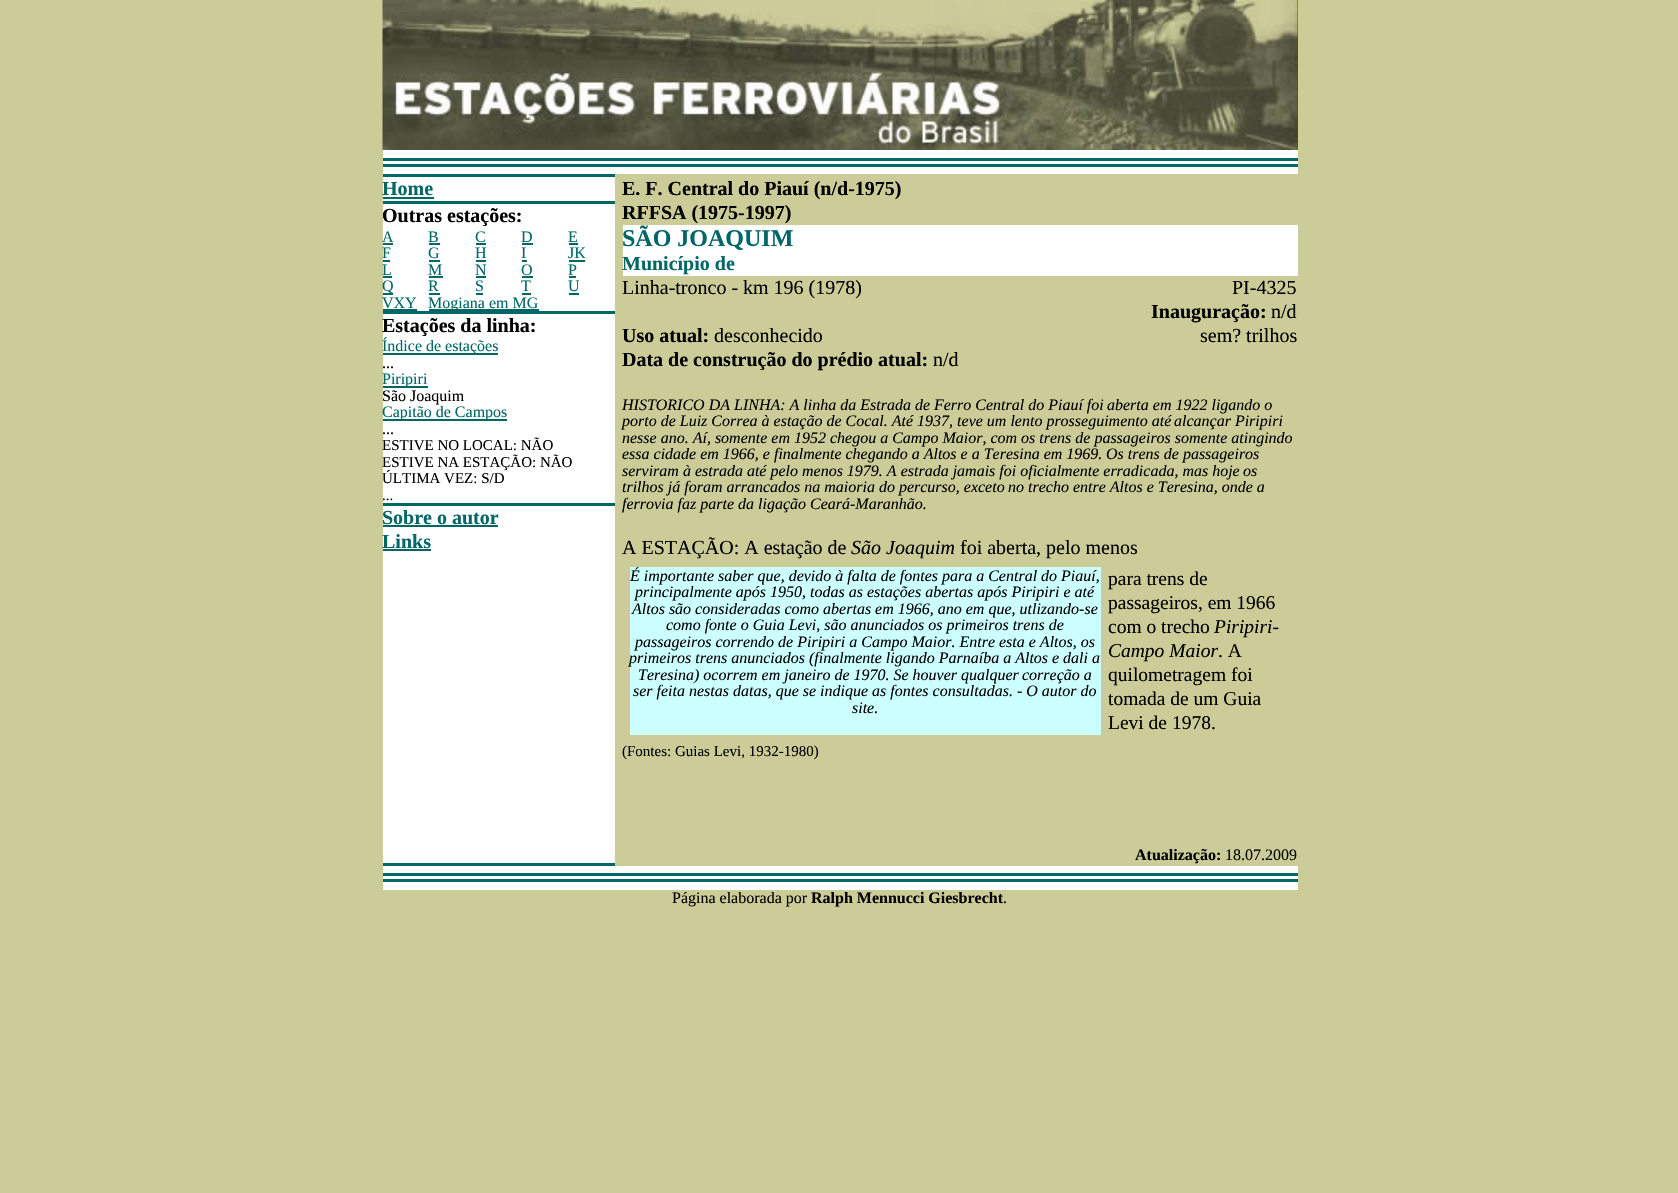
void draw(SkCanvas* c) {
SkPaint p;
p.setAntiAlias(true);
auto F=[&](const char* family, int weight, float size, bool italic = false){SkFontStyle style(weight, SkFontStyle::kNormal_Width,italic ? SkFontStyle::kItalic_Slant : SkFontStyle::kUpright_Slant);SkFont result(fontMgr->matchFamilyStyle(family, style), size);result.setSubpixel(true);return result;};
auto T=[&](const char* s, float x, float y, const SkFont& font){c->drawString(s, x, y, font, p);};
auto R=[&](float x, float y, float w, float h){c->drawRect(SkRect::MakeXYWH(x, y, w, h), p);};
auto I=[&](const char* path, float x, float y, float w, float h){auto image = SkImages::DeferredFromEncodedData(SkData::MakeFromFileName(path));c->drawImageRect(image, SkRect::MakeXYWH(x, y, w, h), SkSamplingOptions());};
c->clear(0xffcccc99);
p.setColor(0xff006666);
R(1297,0,1,150);
I("1.png",382,0,916,150);
p.setColor(0xffffffff);
R(383,150,915,8);
p.setColor(0xff006666);
R(383,158,915,3);
p.setColor(0xffffffff);
R(383,161,915,3);
p.setColor(0xff006666);
R(383,164,915,3);
p.setColor(0xffffffff);
R(383,167,915,7);
p.setColor(0xff006666);
R(383,174,232,3);
p.setColor(0xffffffff);
R(383,177,232,686);
auto f1 = F("Liberation Serif",700,20);
p.setColor(0xff006666);
T("Home",382,195,f1);
R(383,197,51,2);
R(383,201,232,3);
p.setColor(0xff000000);
T("Outras estações:",382,222,f1);
auto f2 = F("Liberation Serif",400,16);
p.setColor(0xff006666);
T("A",382,242,f2);
R(383,243,10,2);
T("B",428,242,f2);
R(429,243,11,2);
T("C",475,242,f2);
R(476,243,10,2);
T("D",521,242,f2);
R(522,243,11,2);
T("E",568,242,f2);
R(569,243,9,2);
T("F",382,258,f2);
R(383,260,7,2);
T("G",428,258,f2);
R(429,260,11,2);
T("H",475,258,f2);
R(476,260,10,2);
T("I",521,258,f2);
R(522,260,5,2);
T("JK",568,258,f2);
R(569,260,16,2);
T("L",382,275,f2);
R(383,276,9,2);
T("M",428,275,f2);
R(429,276,14,2);
T("N",475,275,f2);
R(476,276,10,2);
T("O",521,275,f2);
R(522,276,11,2);
T("P",568,275,f2);
R(569,276,7,2);
R(383,293,10,2);
T("Q",382,291,f2);
T("R",428,291,f2);
R(429,293,11,2);
T("S",475,291,f2);
R(476,293,7,2);
T("T",521,291,f2);
R(522,293,9,2);
T("U",568,291,f2);
R(569,293,10,2);
T("VXY",382,308,f2);
R(383,309,34,2);
R(429,309,110,2);
R(383,311,232,3);
T("Mogiana em MG",428,308,f2);
p.setColor(0xff000000);
T("Estações da linha:",382,332,f1);
p.setColor(0xff006666);
R(383,353,115,2);
T("Índice de estações",382,351,f2);
p.setColor(0xff000000);
T("...",382,368,f2);
p.setColor(0xff006666);
R(383,386,45,2);
T("Piripiri",382,384,f2);
p.setColor(0xff000000);
T("São Joaquim",382,401,f2);
p.setColor(0xff006666);
R(383,419,124,2);
T("Capitão de Campos",382,417,f2);
p.setColor(0xff000000);
T("...",382,434,f2);
auto f3 = F("Liberation Serif",400,15);
T("ESTIVE NO LOCAL: NÃO",382,450,f3);
T("ESTIVE NA ESTAÇÃO: NÃO",382,467,f3);
T("ÚLTIMA VEZ: S/D",382,483,f3);
T("...",382,500,f3);
p.setColor(0xff006666);
R(383,503,232,3);
T("Sobre o autor",382,524,f1);
R(383,525,115,2);
T("Links",382,548,f1);
R(383,549,48,2);
p.setColor(0xff000000);
T("E. F. Central do Piauí (n/d-1975)",622,195,f1);
T("RFFSA (1975-1997)",622,219,f1);
p.setColor(0xffffffff);
R(623,225,675,51);
auto f4 = F("Liberation Serif",700,24);
p.setColor(0xff006666);
T("SÃO JOAQUIM",622,246,f4);
T("Município de",622,270,f1);
auto f5 = F("Liberation Serif",400,20);
p.setColor(0xff000000);
T("Linha-tronco - km 196 (1978)",622,294,f5);
T("PI-4325",1232,294,f5);
T("Inauguração:",1151,318,f1);
T("n/d",1271,318,f5);
T("Uso atual:",622,342,f1);
T("desconhecido",714,342,f5);
T("sem? trilhos",1200,342,f5);
T("Data de construção do prédio atual:",622,366,f1);
T("n/d",933,366,f5);
auto f6 = F("Liberation Serif",400,16,true);
T("HISTORICO DA LINHA: A linha da Estrada de Ferro Central do Piauí foi",622,410,f6);
T("aberta em 1922 ligando o",1107,410,f6);
T("porto de Luiz Correa à estação de Cocal. Até 1937, teve um lento prosseguimento até",622,426,f6);
T("alcançar Piripiri",1174,426,f6);
T("nesse ano. Aí, somente em 1952 chegou a Campo Maior, com os trens de passageiros somente atingindo",622,443,f6);
T("essa cidade em 1966, e finalmente chegando a Altos e a Teresina em 1969.",622,459,f6);
T("Os trens de passageiros",1106,459,f6);
T("serviram à estrada até pelo menos 1979. A estrada jamais foi oficialmente erradicada, mas hoje",622,476,f6);
T("os",1243,476,f6);
T("trilhos já foram arrancados na maioria do percurso, exceto",622,492,f6);
T("no trecho entre Altos e Teresina, onde a",1008,492,f6);
T("ferrovia faz parte da ligação Ceará-Maranhão.",622,509,f6);
T("A ESTAÇÃO: A estação de",622,554,f5);
auto f7 = F("Liberation Serif",400,20,true);
T("São Joaquim",851,554,f7);
T("foi aberta, pelo menos",960,554,f5);
p.setColor(0xffccffff);
R(630,567,471,168);
p.setColor(0xff000000);
T("É importante saber que, devido à falta de fontes para a Central do",630,581,f6);
T("Piauí,",1061,581,f6);
T("principalmente após 1950, todas as estações abertas após Piripiri e até",635,597,f6);
T("Altos são consideradas como abertas em 1966, ano em que, utlizando-se",632,614,f6);
T("como fonte o Guia Levi, são anunciados os primeiros trens de",666,630,f6);
T("passageiros correndo de Piripiri a Campo Maior. Entre esta e Altos, os",635,647,f6);
T("primeiros trens anunciados (finalmente ligando Parnaíba a Altos",629,663,f6);
T("e dali a",1052,663,f6);
T("Teresina) ocorrem em janeiro de 1970. Se houver qualquer",638,680,f6);
T("correção a",1022,680,f6);
T("ser feita nestas datas, que se indique as fontes consultadas. - O autor do",633,696,f6);
T("site.",852,713,f6);
auto f8 = F("Liberation Serif",400,19.5);
T("para trens de",1108,585,f8);
T("passageiros, em 1966",1108,609,f8);
T("com o trecho",1108,633,f8);
auto f9 = F("Liberation Serif",400,19.5,true);
T("Piripiri-",1214,633,f9);
T("Campo Maior",1108,657,f9);
T(". A",1218,657,f8);
T("quilometragem foi",1108,681,f8);
T("tomada de um Guia",1108,705,f8);
T("Levi de 1978.",1108,729,f8);
T("(Fontes: Guias Levi, 1932-1980)",622,756,f3);
auto f10 = F("Liberation Serif",700,16);
T("Atualização:",1135,860,f10);
T("18.07.2009",1225,860,f2);
p.setColor(0xff006666);
R(383,863,232,3);
p.setColor(0xffffffff);
R(383,866,915,7);
p.setColor(0xff006666);
R(383,873,915,3);
p.setColor(0xffffffff);
R(383,876,915,3);
p.setColor(0xff006666);
R(383,879,915,3);
p.setColor(0xffffffff);
R(383,882,915,8);
p.setColor(0xff000000);
T("Página elaborada por",672,903,f2);
T("Ralph Mennucci Giesbrecht",811,903,f10);
T(".",1003,903,f2);
}
